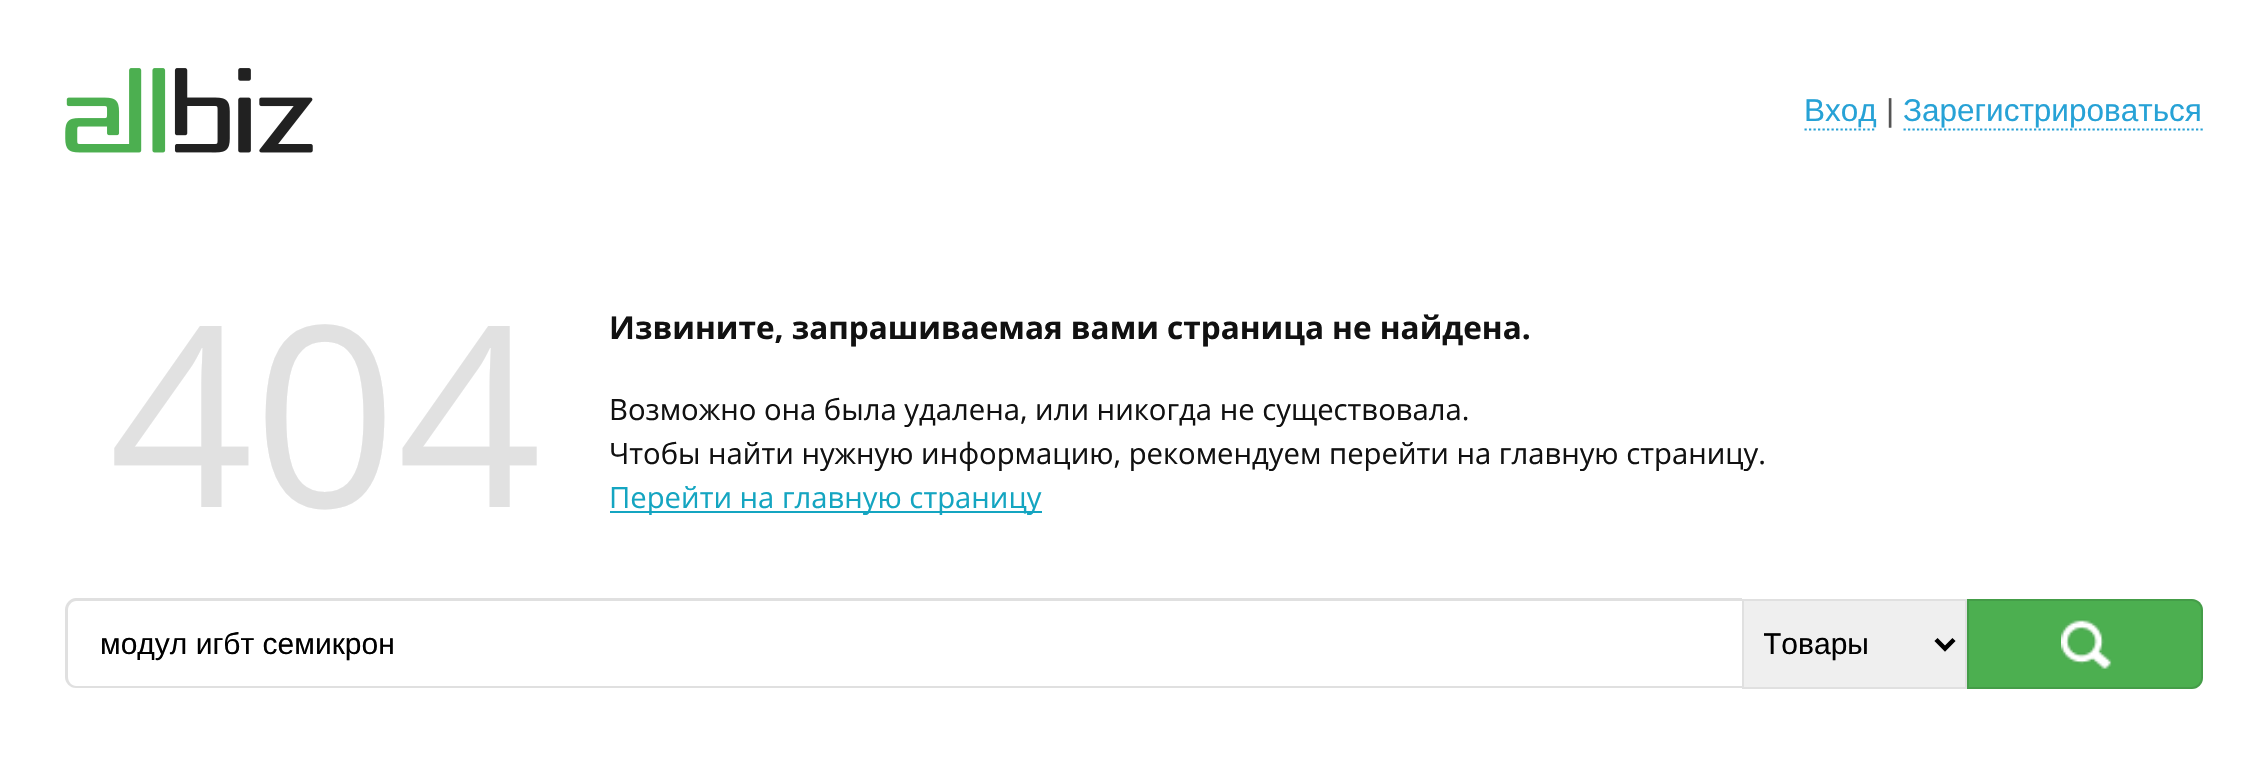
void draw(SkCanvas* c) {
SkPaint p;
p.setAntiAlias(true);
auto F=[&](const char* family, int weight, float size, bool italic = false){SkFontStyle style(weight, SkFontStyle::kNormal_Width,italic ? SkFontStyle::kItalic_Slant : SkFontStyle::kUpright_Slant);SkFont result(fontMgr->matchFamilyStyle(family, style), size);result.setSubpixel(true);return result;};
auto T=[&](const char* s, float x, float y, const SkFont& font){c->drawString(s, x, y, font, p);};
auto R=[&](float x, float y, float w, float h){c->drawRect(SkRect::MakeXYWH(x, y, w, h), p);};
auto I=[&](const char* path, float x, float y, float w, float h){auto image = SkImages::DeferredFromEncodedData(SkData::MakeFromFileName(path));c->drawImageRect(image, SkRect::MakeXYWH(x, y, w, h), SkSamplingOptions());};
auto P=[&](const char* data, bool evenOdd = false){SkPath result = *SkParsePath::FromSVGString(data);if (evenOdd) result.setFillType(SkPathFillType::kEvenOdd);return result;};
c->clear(0xffffffff);
I("1.png",65,68,248,85);
auto f1 = F("Liberation Sans",400,31.5);
p.setColor(0xff27a2d6);
T("Вход",1804,121,f1);
p.setStroke(true);
p.setStrokeWidth(2.2);
p.setPathEffect(SkDashPathEffect::Make({{2.25f,2.25f}}, 0));
c->drawPath(P("M1804.5 129.5h72"),p);
p.setPathEffect(nullptr);
p.setStroke(false);
p.setColor(0xff545454);
T("|",1886,121,f1);
p.setColor(0xff27a2d6);
T("Зарегистрироваться",1903,121,f1);
p.setStroke(true);
p.setPathEffect(SkDashPathEffect::Make({{2.25f,2.25f}}, 0));
c->drawPath(P("M1903.5 129.5h299.5"),p);
p.setPathEffect(nullptr);
auto f2 = F("Open Sans",400,252);
p.setStroke(false);
p.setColor(0xffe1e1e1);
T("404",109,507,f2);
auto f3 = F("Open Sans",700,31.5);
p.setColor(0xff111111);
T("Извините, запрашиваемая вами страница не найдена.",609,339,f3);
auto f4 = F("Open Sans",400,29.25);
T("Возможно она была удалена, или никогда не существовала.",609,420,f4);
T("Чтобы найти нужную информацию, рекомендуем перейти на главную страницу.",609,464,f4);
p.setColor(0xff14a5c1);
R(610,511,432,2);
T("Перейти на главную страницу",609,508,f4);
p.setColor(0xffe0e0e0);
c->drawPath(P("M76 598h1666v90h-1666c-6 0-11-5-11-11v-67c0-6 5-12 11-12zm0 3h1666v85h-1666c-4 0-8-4-8-9v-67c0-5 4-9 8-9z",true),p);
auto f5 = F("Liberation Sans",400,30);
p.setColor(0xff000000);
T("модул игбт семикрон",100,654,f5);
p.setColor(0xffefefef);
c->drawRect(SkRect::MakeXYWH(1743,600,223,88),p);
p.setStroke(true);
p.setStrokeWidth(2);
p.setColor(0xffe0e0e0);
c->drawRect(SkRect::MakeXYWH(1743,600,223,88),p);
p.setStrokeWidth(4.5);
p.setColor(0xff000000);
c->drawPath(P("M1936 639.5l9 9l9-9"),p);
c->save();
c->clipRect(SkRect::MakeXYWH(1764,626,164,38));
p.setStroke(false);
T("Товары",1763,654,f5);
c->restore();
p.setColor(0xff4caf50);
c->drawPath(P("M1967 599h225c6 0 11 5 11 11v68c0 6-5 11-11 11h-225z"),p);
I("2.png",2061,619,51,50);
p.setStroke(true);
p.setStrokeWidth(2);
p.setColor(0x1a000000);
c->drawPath(P("M1968 600h224c5.5 0 10 4.5 10 10v68c0 5.5-4.5 10-10 10h-224z"),p);
}
